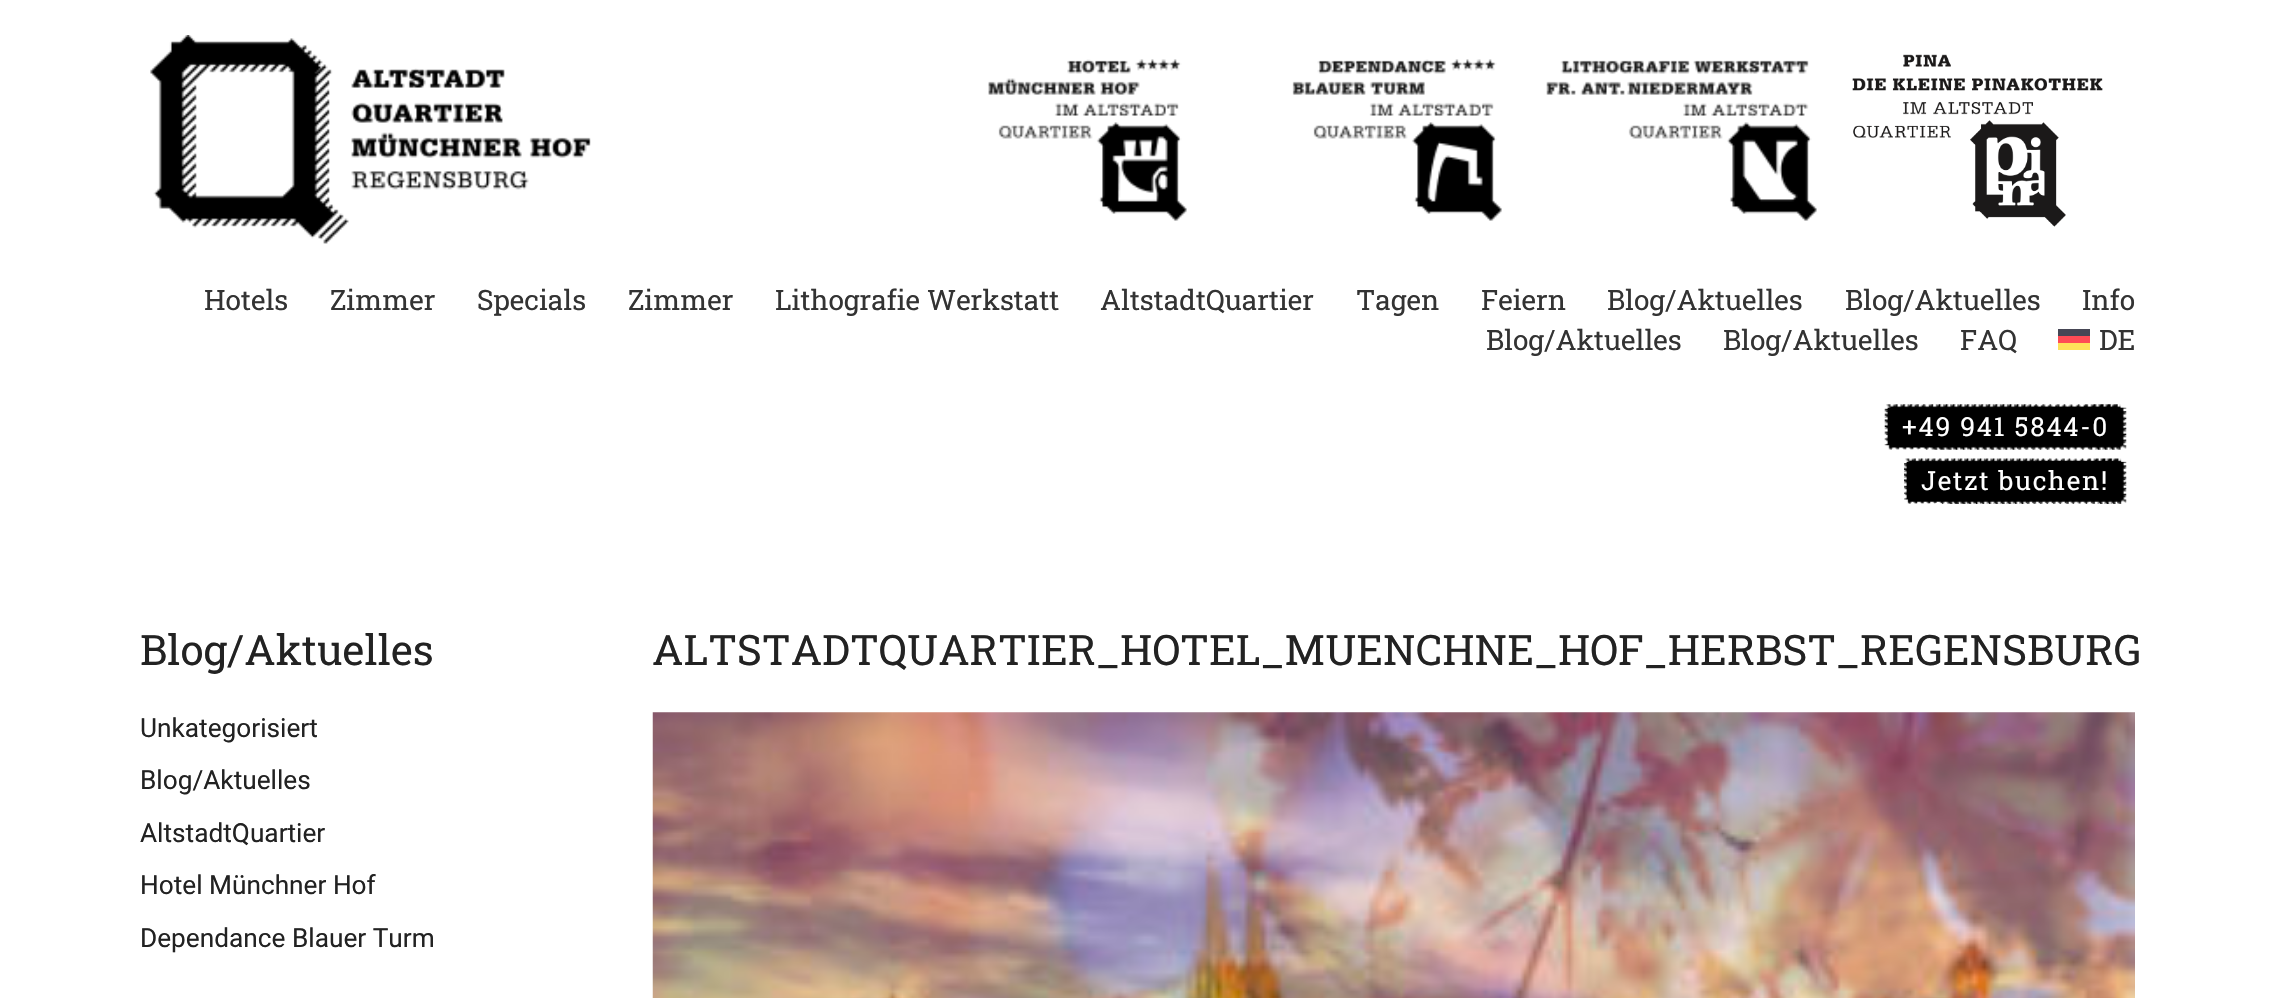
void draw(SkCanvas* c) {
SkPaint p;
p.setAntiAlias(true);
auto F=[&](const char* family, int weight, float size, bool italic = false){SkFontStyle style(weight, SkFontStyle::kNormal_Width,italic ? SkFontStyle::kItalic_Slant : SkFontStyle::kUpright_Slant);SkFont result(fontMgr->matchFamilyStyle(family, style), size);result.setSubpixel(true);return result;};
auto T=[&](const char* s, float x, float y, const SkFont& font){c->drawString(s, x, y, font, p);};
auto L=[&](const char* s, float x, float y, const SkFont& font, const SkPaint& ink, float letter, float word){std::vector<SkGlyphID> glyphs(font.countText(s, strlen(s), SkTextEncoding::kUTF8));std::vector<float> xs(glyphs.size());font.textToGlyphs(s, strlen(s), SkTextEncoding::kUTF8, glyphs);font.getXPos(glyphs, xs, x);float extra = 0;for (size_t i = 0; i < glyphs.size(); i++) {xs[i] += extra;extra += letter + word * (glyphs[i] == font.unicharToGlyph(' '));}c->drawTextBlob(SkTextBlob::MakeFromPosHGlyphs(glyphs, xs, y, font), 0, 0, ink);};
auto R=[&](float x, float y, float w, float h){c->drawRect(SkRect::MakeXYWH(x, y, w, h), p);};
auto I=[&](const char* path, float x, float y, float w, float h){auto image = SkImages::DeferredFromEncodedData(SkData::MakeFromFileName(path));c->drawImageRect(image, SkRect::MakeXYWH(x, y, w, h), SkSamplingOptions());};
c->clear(0xffffffff);
I("1.png",150,35,441,209);
I("2.png",988,59,199,162);
I("3.png",1292,59,210,162);
I("4.png",1546,60,271,161);
I("5.png",1852,54,251,173);
auto f1 = F("Roboto Slab",400,28);
p.setColor(0xff333333);
T("Hotels",204,310,f1);
T("Zimmer",330,310,f1);
T("Specials",477,310,f1);
T("Zimmer",628,310,f1);
T("Lithografie Werkstatt",775,310,f1);
T("AltstadtQuartier",1100,310,f1);
T("Tagen",1356,310,f1);
T("Feiern",1481,310,f1);
T("Blog/Aktuelles",1607,310,f1);
T("Blog/Aktuelles",1845,310,f1);
T("Info",2082,310,f1);
T("Blog/Aktuelles",1486,350,f1);
T("Blog/Aktuelles",1723,350,f1);
T("FAQ",1960,350,f1);
p.setColor(0xff464655);
R(2058,329,32,7);
p.setColor(0xff333333);
T("DE",2099,350,f1);
p.setColor(0xffff4b55);
R(2058,336,32,7);
p.setColor(0xffffe15a);
R(2058,343,32,7);
I("6.png",1884,404,243,46);
auto f2 = F("Roboto Slab",400,26.25);
p.setColor(0xffffffff);
L("+49 941 5844-0",1902,436,f2,p,1.75,0);
I("7.png",1904,458,223,46);
L("Jetzt buchen!",1921,490,f2,p,1.75,0);
auto f3 = F("Roboto Slab",400,42);
p.setColor(0xff222222);
T("Blog/Aktuelles",140,665,f3);
auto f4 = F("Roboto",400,26.25);
T("Unkategorisiert",140,737,f4);
T("Blog/Aktuelles",140,789,f4);
T("AltstadtQuartier",140,842,f4);
T("Hotel Münchner Hof",140,894,f4);
T("Dependance Blauer Turm",140,947,f4);
T("ALTSTADTQUARTIER_HOTEL_MUENCHNE_HOF_HERBST_REGENSBURG",652,665,f3);
I("8.png",652,712,1483,286);
}
